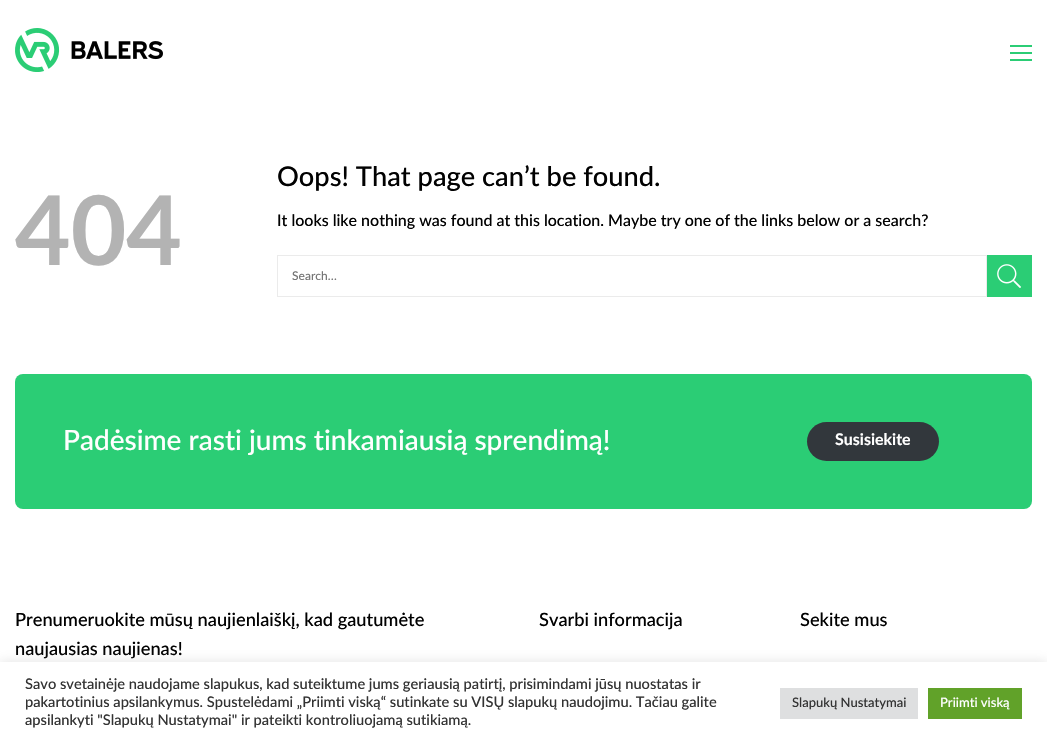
void draw(SkCanvas* c) {
SkPaint p;
p.setAntiAlias(true);
auto F=[&](const char* family, int weight, float size, bool italic = false){SkFontStyle style(weight, SkFontStyle::kNormal_Width,italic ? SkFontStyle::kItalic_Slant : SkFontStyle::kUpright_Slant);SkFont result(fontMgr->matchFamilyStyle(family, style), size);result.setSubpixel(true);return result;};
auto T=[&](const char* s, float x, float y, const SkFont& font){c->drawString(s, x, y, font, p);};
auto R=[&](float x, float y, float w, float h){c->drawRect(SkRect::MakeXYWH(x, y, w, h), p);};
auto Q=[&](float x, float y, float w, float h, float radius){c->drawRoundRect(SkRect::MakeXYWH(x, y, w, h), radius, radius, p);};
auto I=[&](const char* path, float x, float y, float w, float h){auto image = SkImages::DeferredFromEncodedData(SkData::MakeFromFileName(path));c->drawImageRect(image, SkRect::MakeXYWH(x, y, w, h), SkSamplingOptions());};
c->clear(0xffffffff);
I("1.png",15,28,148,44);
p.setColor(0xff2bcd75);
R(1010,45,22,2);
R(1010,52,22,2);
R(1010,59,22,2);
auto f1 = F("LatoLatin",700,96);
p.setColor(0xffb3b3b3);
T("404",15,265,f1);
auto f2 = F("LatoLatin",500,27.25);
p.setColor(0xff010101);
T("Oops! That page can’t be found.",277,186,f2);
auto f3 = F("LatoLatin",500,16);
T("It looks like nothing was found at this location. Maybe try one of the links below or a search?",277,226,f3);
p.setStroke(true);
p.setStrokeWidth(1);
p.setColor(0xffebebeb);
c->drawRect(SkRect::MakeXYWH(277.5,255.5,709,41),p);
auto f4 = F("LatoLatin",500,12);
p.setStroke(false);
p.setColor(0xff757575);
T("Search…",292,280,f4);
p.setColor(0xff2bcd75);
R(987,255,45,42);
I("2.png",997,264,24,24);
Q(15,374,1017,135,8);
auto f5 = F("LatoLatin",500,28);
p.setColor(0xffffffff);
T("Padėsime rasti jums tinkamiausią sprendimą!",63,450,f5);
p.setColor(0xff32373c);
Q(807,422,132,39,19.5);
auto f6 = F("LatoLatin",700,16);
p.setColor(0xffffffff);
T("Susisiekite",835,445,f6);
auto f7 = F("LatoLatin",500,18.25);
p.setColor(0xff010101);
T("Prenumeruokite mūsų naujienlaiškį, kad gautumėte",15,626,f7);
T("naujausias naujienas!",15,655,f7);
T("Svarbi informacija",539,626,f7);
T("Sekite mus",800,626,f7);
p.setColor(0x4dacabab);
p.setMaskFilter(SkMaskFilter::MakeBlur(kNormal_SkBlurStyle, 5));
c->drawRect(SkRect::MakeXYWH(0,661,1047,82),p);
p.setMaskFilter(nullptr);
p.setColor(0xffffffff);
R(0,662,1047,82);
auto f8 = F("LatoLatin",500,14.65);
p.setColor(0xff333333);
T("Savo svetainėje naudojame slapukus, kad suteiktume jums geriausią patirtį, prisimindami jūsų nuostatas ir",25,689,f8);
T("pakartotinius apsilankymus. Spustelėdami „Priimti viską“ sutinkate su VISŲ slapukų naudojimu. Tačiau galite",25,707,f8);
T("apsilankyti \"Slapukų Nustatymai\" ir pateikti kontroliuojamą sutikiamą.",25,725,f8);
p.setColor(0xffdedfe0);
R(780,688,138,31);
auto f9 = F("LatoLatin",500,13);
p.setColor(0xff333333);
T("Slapukų Nustatymai",792,707,f9);
p.setColor(0xff61a229);
R(928,688,94,31);
p.setColor(0xffffffff);
T("Priimti viską",940,707,f9);
}
